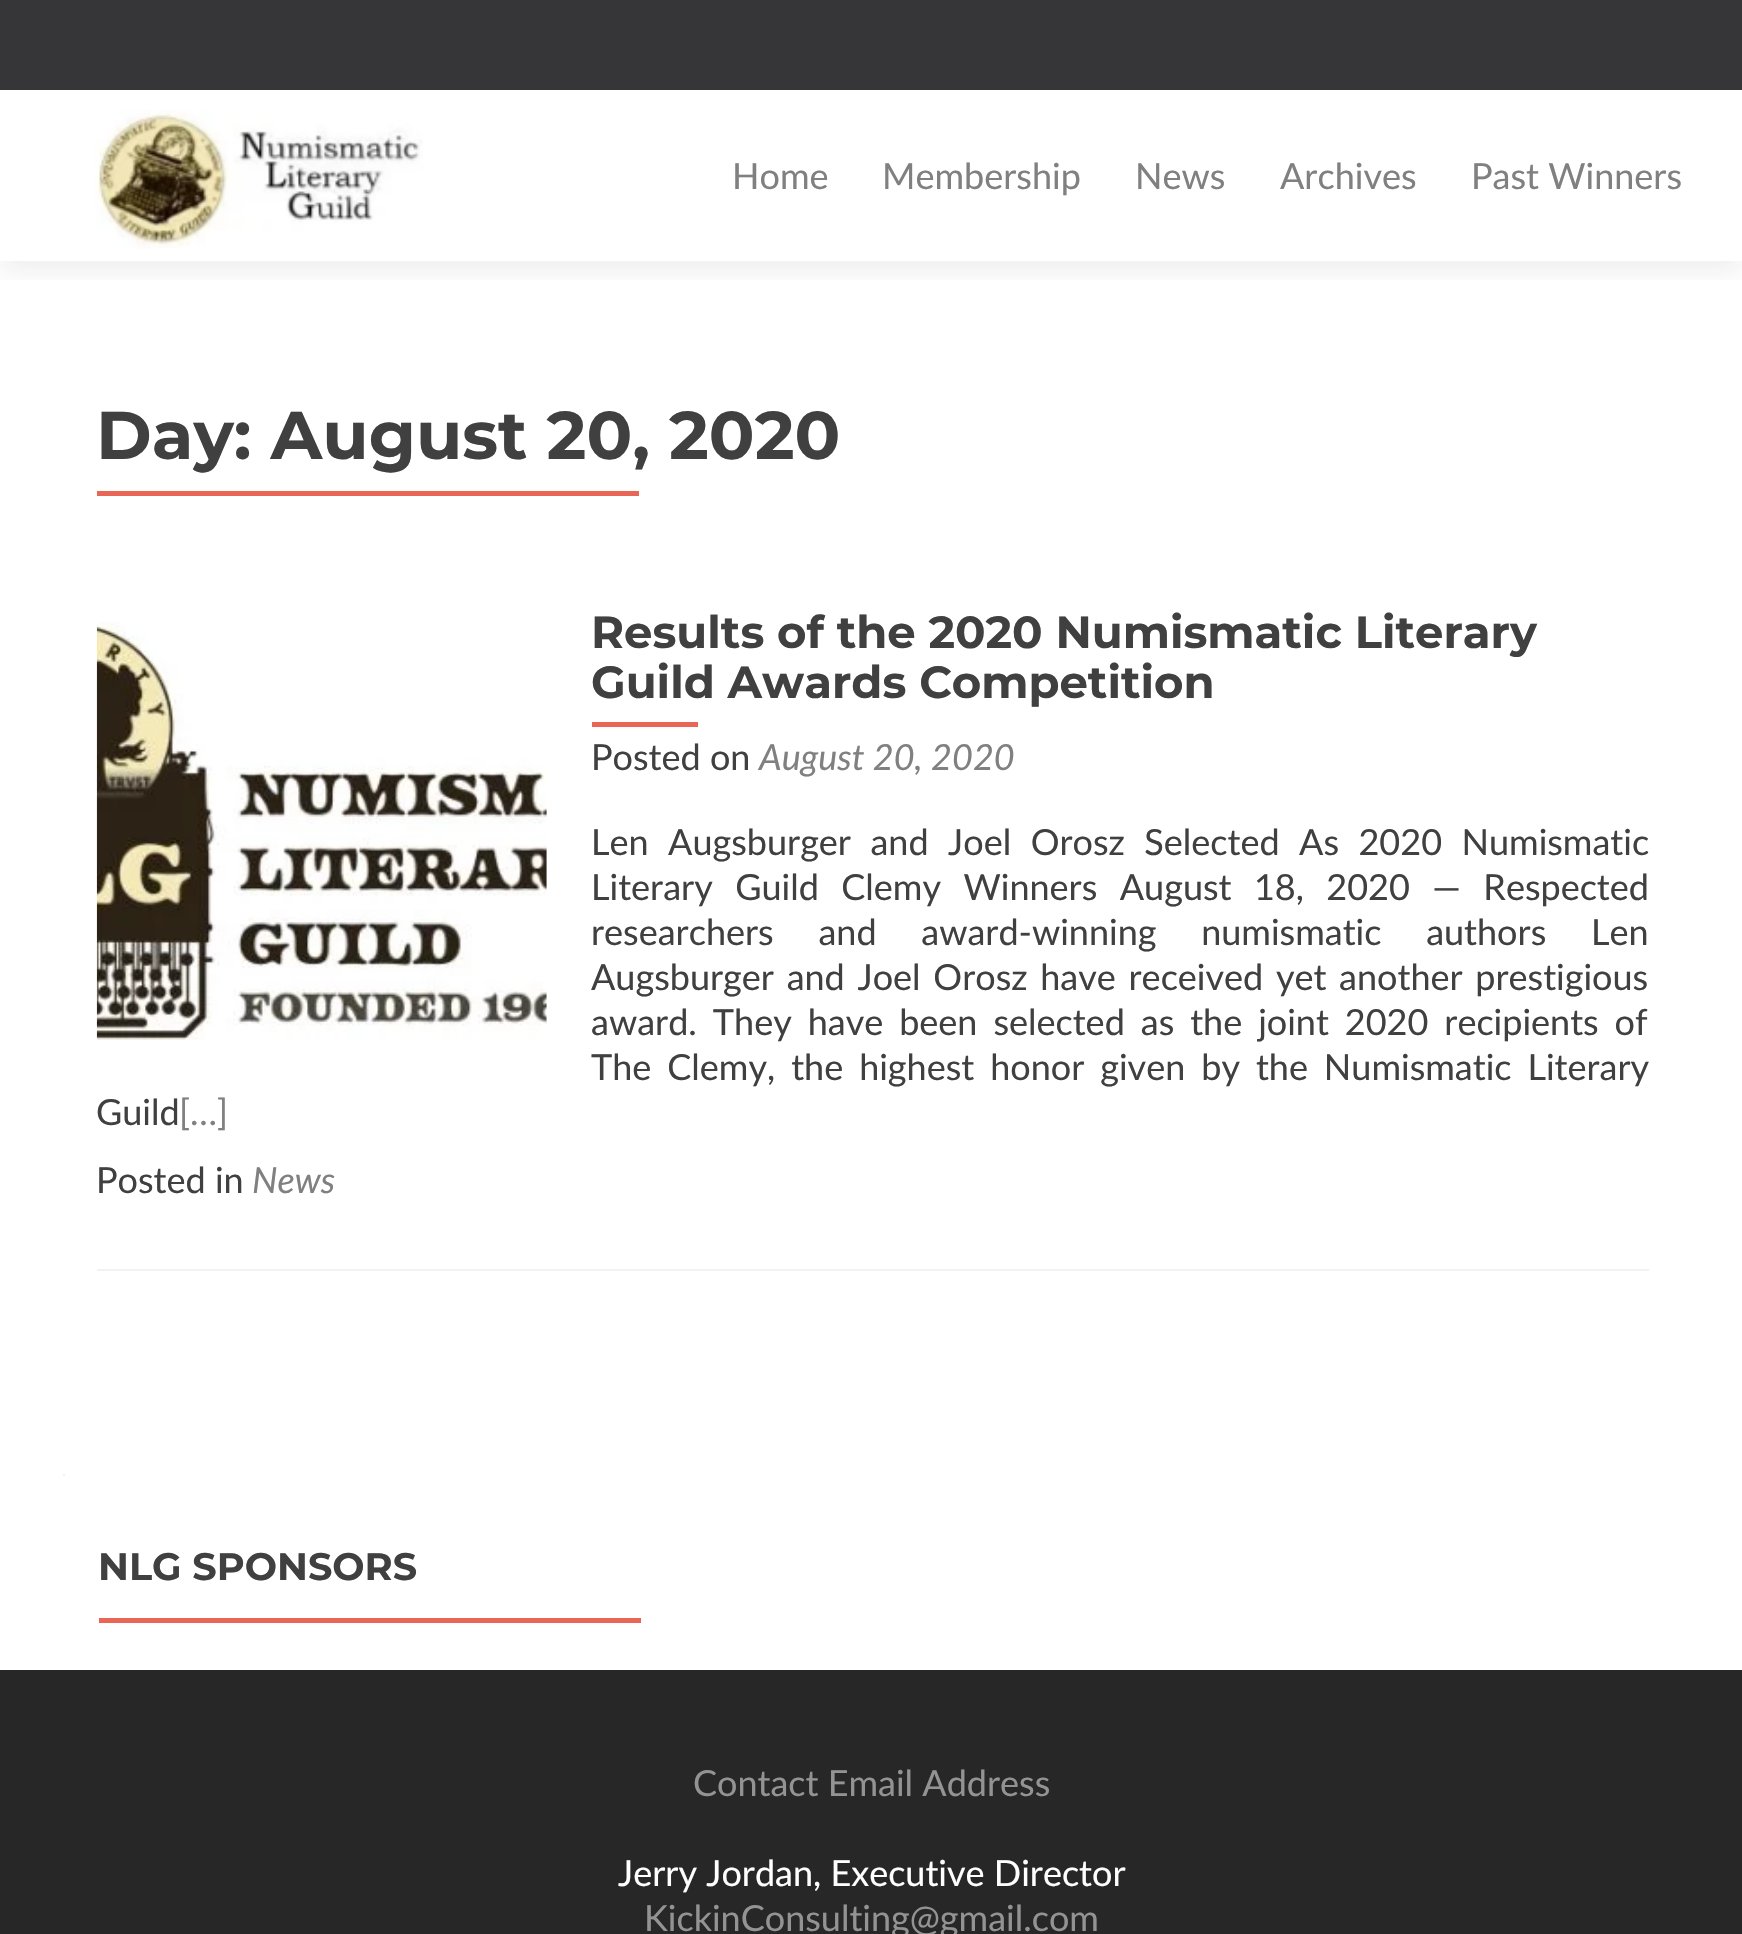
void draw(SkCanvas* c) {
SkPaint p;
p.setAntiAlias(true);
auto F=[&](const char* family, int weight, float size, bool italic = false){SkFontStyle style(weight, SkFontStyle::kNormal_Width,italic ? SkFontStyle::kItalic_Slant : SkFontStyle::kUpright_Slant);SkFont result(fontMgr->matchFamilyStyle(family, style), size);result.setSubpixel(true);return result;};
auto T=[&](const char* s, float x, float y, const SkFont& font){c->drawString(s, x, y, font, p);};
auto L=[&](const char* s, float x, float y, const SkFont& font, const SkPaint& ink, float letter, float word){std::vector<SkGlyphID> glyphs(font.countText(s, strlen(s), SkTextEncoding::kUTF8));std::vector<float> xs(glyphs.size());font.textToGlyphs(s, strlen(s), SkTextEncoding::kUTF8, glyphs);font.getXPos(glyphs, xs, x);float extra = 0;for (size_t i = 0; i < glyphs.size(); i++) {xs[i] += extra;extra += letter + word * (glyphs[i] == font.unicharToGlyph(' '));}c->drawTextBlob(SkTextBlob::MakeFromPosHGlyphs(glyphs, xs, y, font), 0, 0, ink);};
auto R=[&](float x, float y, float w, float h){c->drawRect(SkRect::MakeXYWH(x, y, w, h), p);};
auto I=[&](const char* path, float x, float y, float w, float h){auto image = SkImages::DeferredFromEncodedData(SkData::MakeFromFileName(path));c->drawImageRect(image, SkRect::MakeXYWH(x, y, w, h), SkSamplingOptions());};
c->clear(0xffffffff);
p.setColor(0xff363537);
R(0,0,1742,90);
c->save();
c->clipRect(SkRect::MakeXYWH(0,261,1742,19));
p.setColor(0x14323232);
p.setMaskFilter(SkMaskFilter::MakeBlur(kNormal_SkBlurStyle, 12.5));
c->drawRect(SkRect::MakeXYWH(0,101,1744,171),p);
p.setMaskFilter(nullptr);
c->restore();
I("1.png",95,110,328,139);
auto f1 = F("Lato",400,36);
p.setColor(0xff808080);
T("Home",732,189,f1);
T("Membership",882,189,f1);
T("News",1135,189,f1);
T("Archives",1280,189,f1);
T("Past Winners",1471,189,f1);
auto f2 = F("Montserrat",700,67.5);
p.setColor(0xff404040);
T("Day: August 20, 2020",96,459,f2);
p.setColor(0xffe96656);
R(97,491,542,5);
p.setColor(0xfff2f2f2);
R(97,1269,1552,2);
auto f3 = F("Montserrat",700,45);
p.setColor(0xff404040);
T("Results of the 2020 Numismatic Literary",591,648,f3);
T("Guild Awards Competition",591,698,f3);
p.setColor(0xffe96656);
R(592,722,106,5);
p.setColor(0xff404040);
T("Posted on",591,770,f1);
auto f4 = F("Lato",400,36,true);
p.setColor(0xff808080);
T("August 20, 2020",759,770,f4);
p.setColor(0xff404040);
L("Len Augsburger and Joel Orosz Selected As 2020 Numismatic",591,855,f1,p,0,10.25);
L("Literary Guild Clemy Winners August 18, 2020 — Respected",591,900,f1,p,0,13.25);
L("researchers and award-winning numismatic authors Len",591,945,f1,p,0,35.5);
L("Augsburger and Joel Orosz have received yet another prestigious",591,990,f1,p,0,3.5);
L("award. They have been selected as the joint 2020 recipients of",591,1035,f1,p,0,6.75);
L("The Clemy, the highest honor given by the Numismatic Literary",591,1080,f1,p,0,6.75);
T("Guild",96,1125,f1);
p.setColor(0xff808080);
T("[…]",179,1125,f1);
p.setColor(0xff404040);
T("Posted in",96,1193,f1);
p.setColor(0xff808080);
T("News",252,1193,f4);
I("2.png",96,622,451,418);
p.setColor(0xfff2f2f2);
R(63,1474,2,2);
auto f5 = F("Montserrat",700,38.25);
p.setColor(0xff404040);
T("NLG SPONSORS",98,1580,f5);
p.setColor(0xffe96656);
R(99,1618,542,5);
p.setColor(0xff272727);
R(0,1670,1742,264);
p.setColor(0xff939393);
T("Contact Email Address",693,1796,f1);
p.setColor(0xffffffff);
T("Jerry Jordan, Executive Director",618,1886,f1);
p.setColor(0xff939393);
T("KickinConsulting@gmail.com",644,1931,f1);
}
